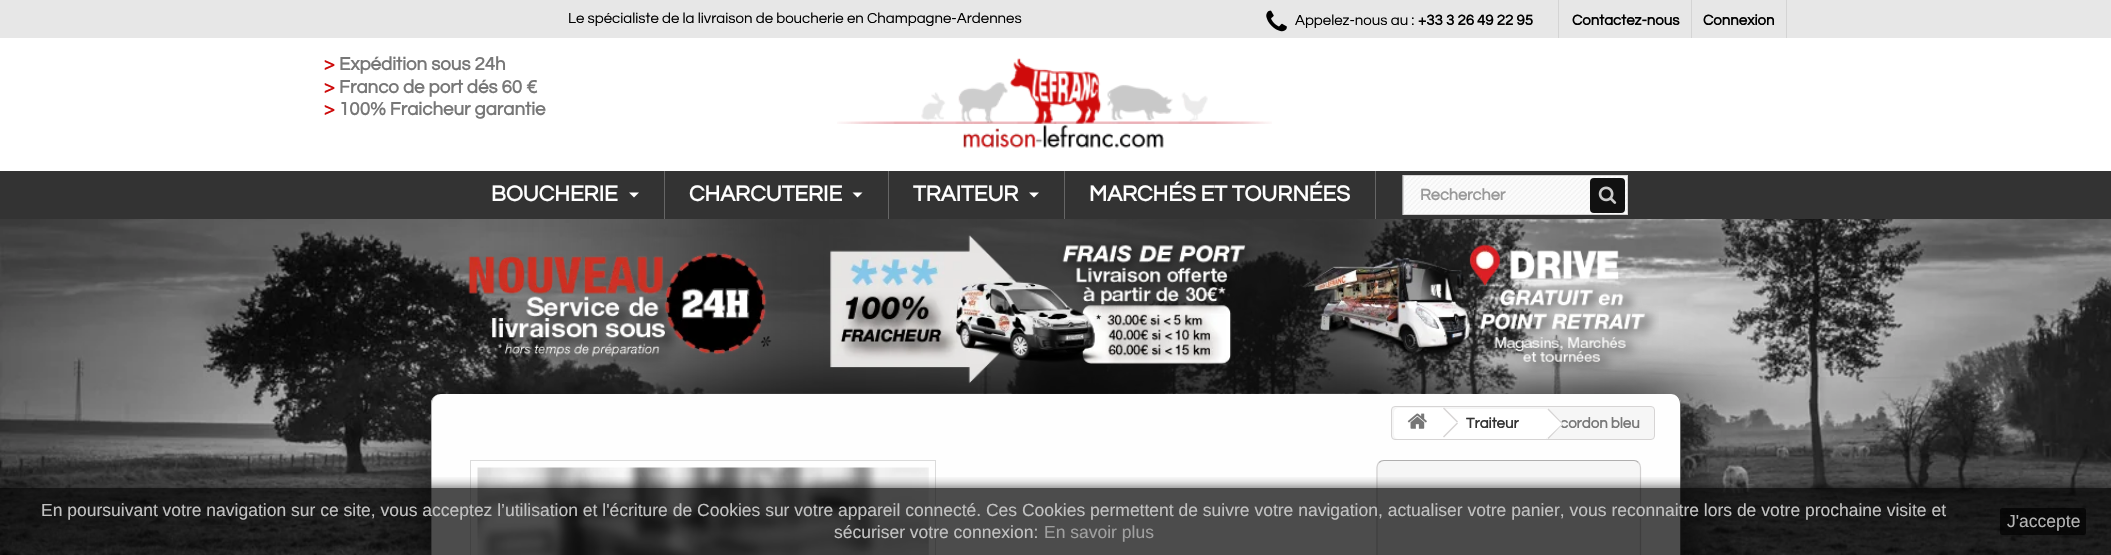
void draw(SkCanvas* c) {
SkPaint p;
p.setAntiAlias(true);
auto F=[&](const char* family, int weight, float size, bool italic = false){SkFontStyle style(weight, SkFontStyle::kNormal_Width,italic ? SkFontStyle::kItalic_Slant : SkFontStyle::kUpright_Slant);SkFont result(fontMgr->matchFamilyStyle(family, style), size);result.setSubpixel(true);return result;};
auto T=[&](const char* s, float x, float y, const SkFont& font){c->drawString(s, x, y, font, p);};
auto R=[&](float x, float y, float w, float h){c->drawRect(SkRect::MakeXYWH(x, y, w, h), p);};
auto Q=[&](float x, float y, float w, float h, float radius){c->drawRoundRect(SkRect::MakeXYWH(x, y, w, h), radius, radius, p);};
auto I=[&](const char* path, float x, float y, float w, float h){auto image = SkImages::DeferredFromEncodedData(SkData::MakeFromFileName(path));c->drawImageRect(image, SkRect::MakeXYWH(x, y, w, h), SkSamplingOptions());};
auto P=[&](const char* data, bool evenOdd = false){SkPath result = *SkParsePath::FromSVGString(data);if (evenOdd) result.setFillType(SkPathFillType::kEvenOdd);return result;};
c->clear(0xffffffff);
p.setColor(0xffe7e7e7);
R(0,0,2111,38);
auto f1 = F("Questrial",400,15);
p.setColor(0xff000000);
T("Le spécialiste de la livraison de boucherie en Champagne-Ardennes",568,23,f1);
I("1.png",1266,10,21,22);
T("Appelez-nous au :",1295,25,f1);
auto f2 = F("Questrial",700,15);
T("+33 3 26 49 22 95",1418,25,f2);
p.setColor(0xffd4d4d4);
R(1558,0,1,46);
p.setColor(0xff000000);
T("Contactez-nous",1572,25,f2);
p.setColor(0xffd4d4d4);
R(1786,0,1,46);
R(1691,0,1,46);
p.setColor(0xff000000);
T("Connexion",1703,25,f2);
p.setColor(0xffffffff);
R(1558,38,229,8);
auto f3 = F("Questrial",700,18.75);
p.setColor(0xffce0b0b);
T(">",324,70,f3);
p.setColor(0xff777777);
T("Expédition sous 24h",339,70,f3);
p.setColor(0xffce0b0b);
T(">",324,93,f3);
p.setColor(0xff777777);
T("Franco de port dés 60 €",339,93,f3);
p.setColor(0xffce0b0b);
T(">",324,115,f3);
p.setColor(0xff777777);
T("100% Fraicheur garantie",339,115,f3);
I("2.png",837,58,435,90);
p.setColor(0xff333333);
R(0,171,2111,48);
p.setColor(0xff666666);
R(664,171,1,48);
auto f4 = F("Questrial",700,22.5);
p.setColor(0xffffffff);
T("BOUCHERIE",491,201,f4);
c->drawPath(P("M629 192.5h10l-5 5z"),p);
p.setColor(0xff666666);
R(888,171,1,48);
p.setColor(0xffffffff);
T("CHARCUTERIE",689,201,f4);
c->drawPath(P("M852.5 192.5h10l-5 5z"),p);
p.setColor(0xff666666);
R(1064,171,1,48);
p.setColor(0xffffffff);
T("TRAITEUR",913,201,f4);
c->drawPath(P("M1029 192.5h10l-5 5z"),p);
p.setColor(0xff666666);
R(1375,171,1,48);
p.setColor(0xffffffff);
T("MARCHÉS ET TOURNÉES",1089,201,f4);
I("3.png",1402,175,225,40);
p.setStroke(true);
p.setStrokeWidth(1);
p.setColor(0xffd6d4d4);
c->drawRect(SkRect::MakeXYWH(1403.5,175.5,224,39),p);
auto f5 = F("Questrial",700,16.25);
p.setStroke(false);
p.setColor(0xff999999);
T("Rechercher",1420,200,f5);
p.setColor(0xff111111);
Q(1590,178,35,35,4);
I("4.png",1598,186,19,18);
I("5.png",0,219,2111,336);
p.setMaskFilter(SkMaskFilter::MakeBlur(kNormal_SkBlurStyle, 37.5));
c->drawRoundRect(SkRect::MakeXYWH(431,394,1250,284),10,10,p);
p.setMaskFilter(nullptr);
p.setColor(0xfffefefe);
c->drawPath(P("M441 394h1230c5.5 0 10 4.5 10 10v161h-1250v-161c0-5.5 4.5-10 10-10z"),p);
p.setColor(0xff666666);
c->drawPath(P("M1681 404c0-6-4-10-10-10c5 0 9 4 9 10v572h1z"),p);
p.setColor(0xffb4b4b4);
c->drawPath(P("M431 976v-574c1-5 5-8 10-8c-5 0-9 4-9 10v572z"),p);
I("6.png",468,219,1191,175);
p.setStroke(true);
p.setColor(0xffdbdbdb);
c->drawRect(SkRect::MakeXYWH(470.5,460.5,465,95),p);
I("7.png",477,467,452,88);
p.setStroke(false);
p.setColor(0xfff6f6f6);
Q(1376,460,265,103,8);
p.setStroke(true);
p.setStrokeWidth(1.2);
p.setColor(0xffb0afaf);
c->drawPath(P("M1379 462.5c1-1 3-2 5-2h250c1.5 0 3.5 1 4.5 2"),p);
p.setColor(0xffd2d0d0);
c->drawPath(P("M1638.5 462.5c1.5 1.5 2 3 2 5v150c0 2-.5 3.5-2 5"),p);
c->drawPath(P("M1379 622.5c-1.5-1.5-2-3-2-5v-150c0-2 .5-3.5 2-5"),p);
p.setStroke(false);
p.setColor(0xfff6f6f6);
c->drawRoundRect(SkRect::MakeXYWH(1391.5,406.5,263,33),3.5,3.5,p);
p.setStroke(true);
p.setStrokeWidth(1);
p.setColor(0xffd6d4d4);
c->drawRoundRect(SkRect::MakeXYWH(1391.5,406.5,263,33),3.5,3.5,p);
p.setStroke(false);
p.setColor(0xffffffff);
c->drawPath(P("M1398 408h43v31h-43c-2 0-4-2-4-4v-23c0-2 2-4 4-4z"),p);
I("8.png",1407,413,20,16);
R(1441,409,105,30);
c->drawPath(P("M1444.5 408.5c-2.5-2.5-6.5 3-7.5 4l-8.5 8c-.5 .5-.5 3.5 0 4l10.5 10c3.5 3.5 4 3.5 7.5 0l6.5-6c1.5-1.5 7-5 4-8z"),p);
p.setColor(0xffd6d4d4);
c->drawPath(P("M1444 407.5l14 14l-1 1l-14-14z"),p);
c->drawPath(P("M1457 422.5l1 1l-14 14l-1-1z"),p);
p.setColor(0xff333333);
T("Traiteur",1466,428,f2);
p.setColor(0xff777777);
T("cordon bleu",1560,428,f2);
p.setColor(0xffffffff);
c->drawPath(P("M1549.5 409.5l12.5 12.5c1 1 1 2.5 0 3.5l-12.5 12.5c-1 1-2.5 1-3.5 0l-12.5-12.5c-1-1-1-2.5 0-3.5l12.5-12.5c1-1 2.5-1 3.5 0z"),p);
p.setColor(0xffd6d4d4);
c->drawPath(P("M1548.5 408.5l14 14.5l-.5 1l-14.5-14.5zm13.5 15.5l.5 .5l-14 14.5l-1-1z"),p);
c->save();
c->clipRect(SkRect::MakeXYWH(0,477,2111,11));
p.setColor(0xb3000000);
p.setMaskFilter(SkMaskFilter::MakeBlur(kNormal_SkBlurStyle, 6));
c->drawRect(SkRect::MakeXYWH(0,488,2111,67),p);
p.setMaskFilter(nullptr);
c->restore();
R(0,488,2111,67);
auto f6 = F("Liberation Sans",400,17.5);
p.setColor(0xffc2c2c2);
T("En poursuivant votre navigation sur ce site, vous acceptez l’utilisation et l'écriture de Cookies sur votre appareil connecté. Ces Cookies permettent de suivre votre navigation, actualiser votre panier, vous reconnaitre lors de votre prochaine visite et",41,516,f6);
T("sécuriser votre connexion:",834,538,f6);
p.setColor(0xffa0a0a0);
T("En savoir plus",1044,538,f6);
p.setColor(0xb3000000);
Q(2000,508,86,27,2.5);
p.setColor(0xffb5b5b5);
T("J'accepte",2007,527,f6);
}
